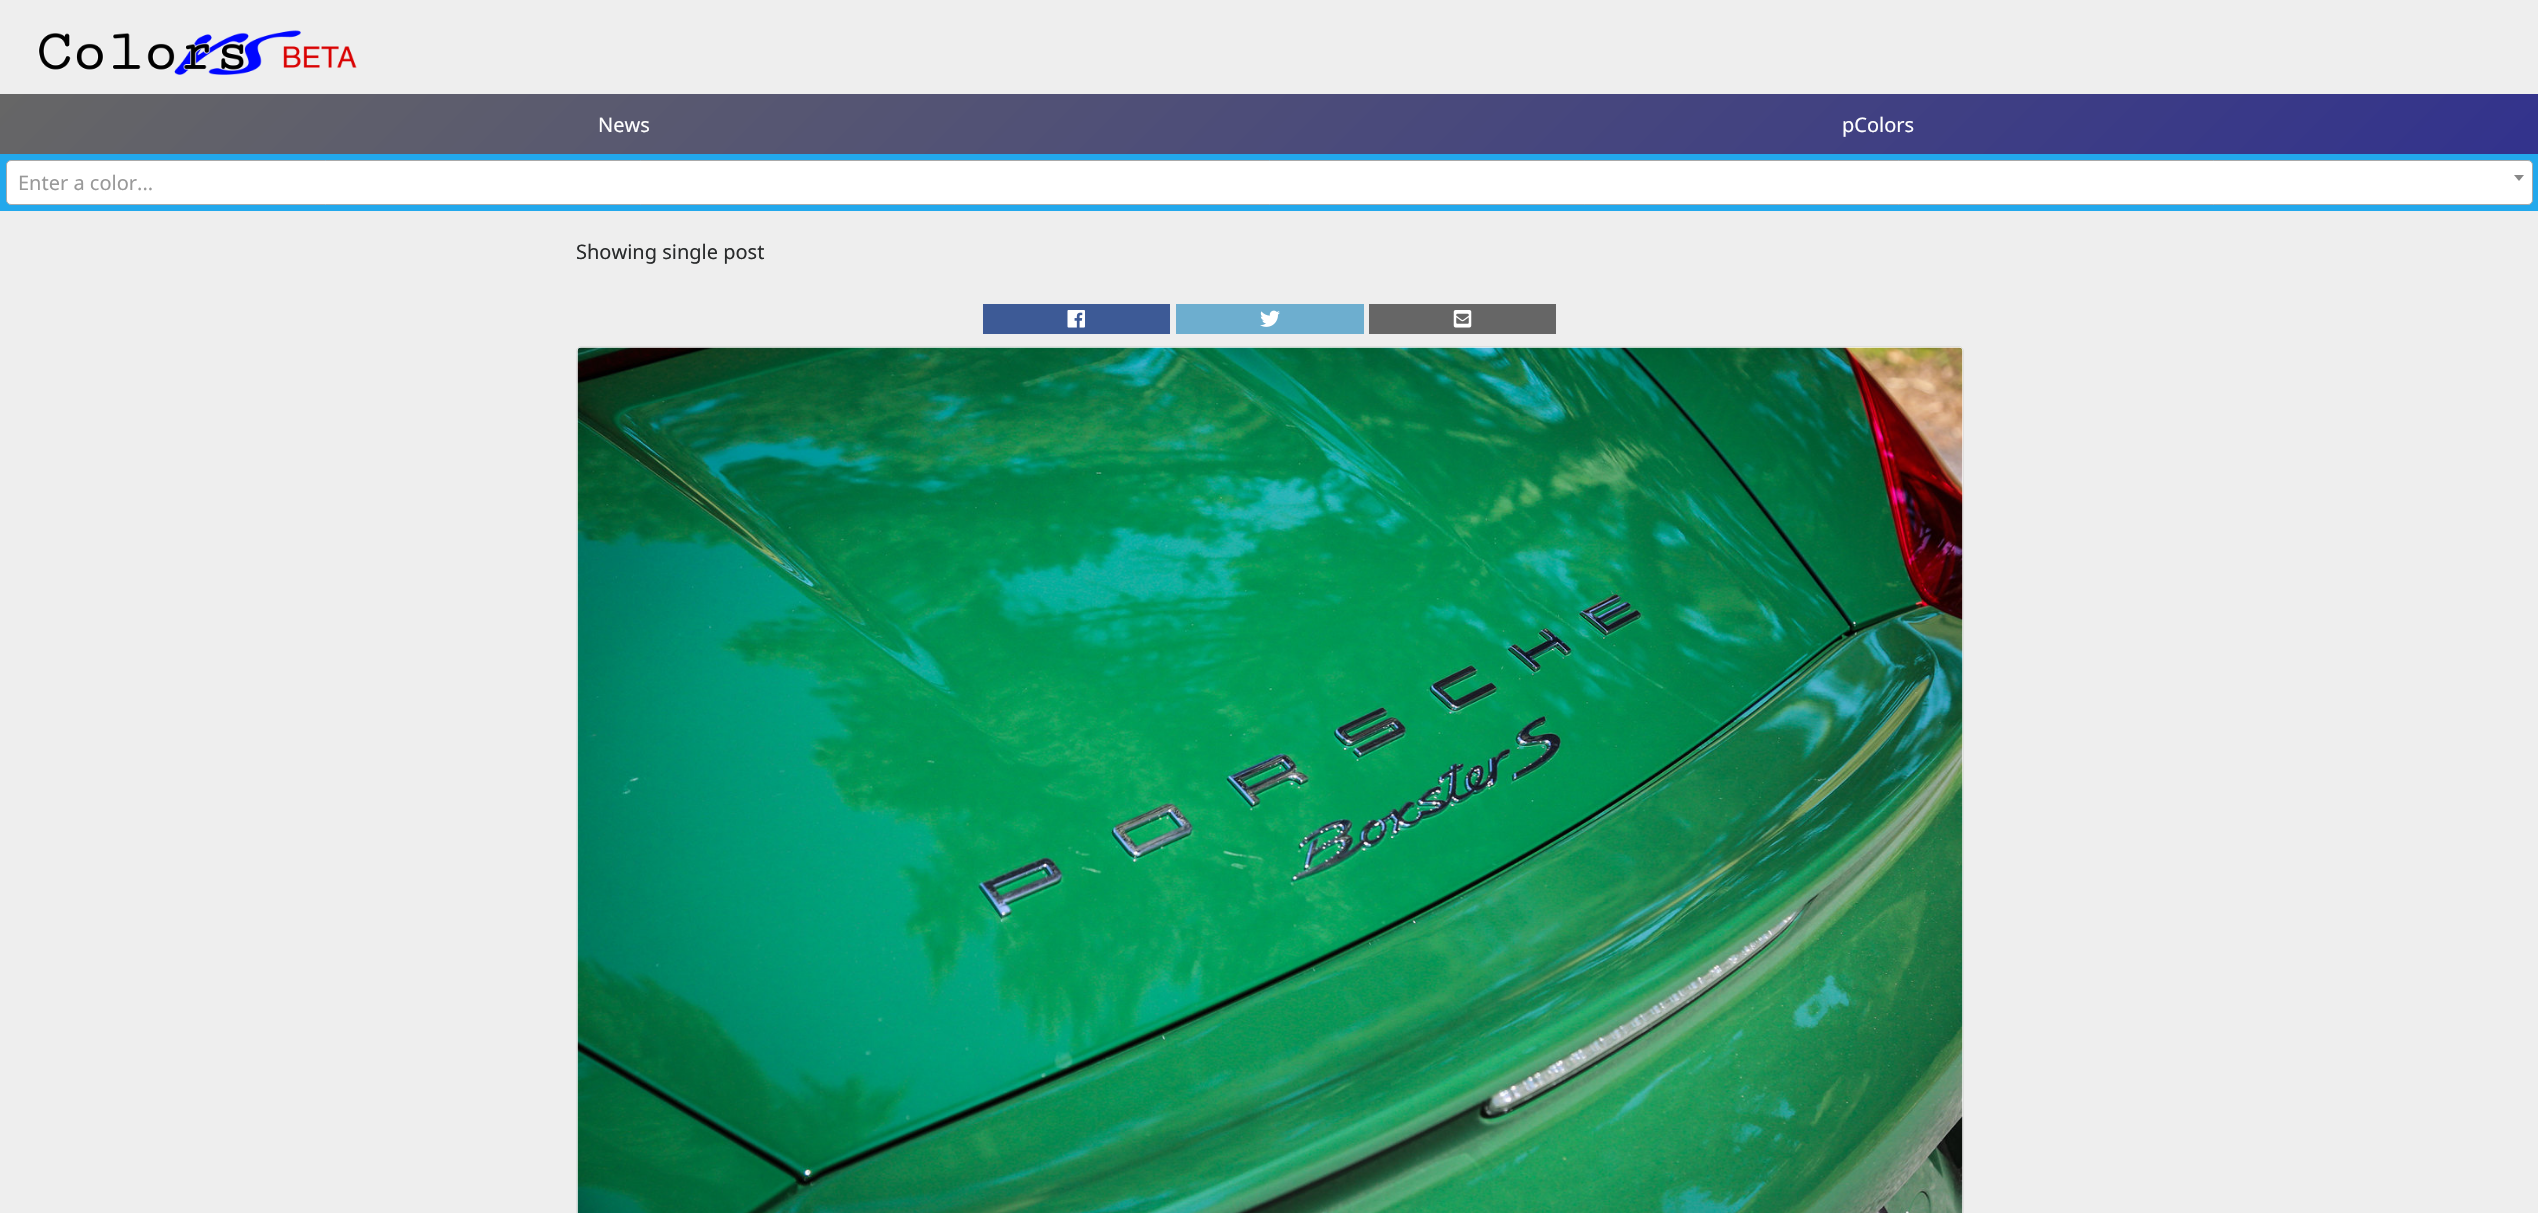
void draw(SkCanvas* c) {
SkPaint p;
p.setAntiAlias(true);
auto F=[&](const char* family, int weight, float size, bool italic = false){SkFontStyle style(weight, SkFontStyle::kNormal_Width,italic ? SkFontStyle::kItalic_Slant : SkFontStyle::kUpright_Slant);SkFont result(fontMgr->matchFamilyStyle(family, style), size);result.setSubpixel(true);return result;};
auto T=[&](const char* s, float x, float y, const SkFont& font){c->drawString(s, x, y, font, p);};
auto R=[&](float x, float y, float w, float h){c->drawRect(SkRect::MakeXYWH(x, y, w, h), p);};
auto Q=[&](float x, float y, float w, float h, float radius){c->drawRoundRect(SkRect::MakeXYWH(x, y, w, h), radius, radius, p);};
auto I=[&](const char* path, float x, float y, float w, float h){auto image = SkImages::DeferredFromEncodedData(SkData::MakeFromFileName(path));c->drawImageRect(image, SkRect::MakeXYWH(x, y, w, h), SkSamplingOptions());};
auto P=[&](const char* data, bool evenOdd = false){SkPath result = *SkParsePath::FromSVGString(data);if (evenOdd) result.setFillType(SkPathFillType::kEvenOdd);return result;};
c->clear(0xffeeeeee);
I("1.png",38,30,319,45);
{
const SkColor colors[] = {0xff777777,0xff662222,0xff222299,0xff666666};
const float stops[] = {0,.33,.67,1};
const SkPoint ends[] = {{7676,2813}, {2479,-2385}};
p.setShader(SkGradientShader::MakeLinear(ends, colors, stops, 4, SkTileMode::kClamp));
p.setAlpha(255);
}
R(0,94,2538,60);
auto f1 = F("Noto Sans",400,20);
p.setShader(nullptr);
p.setColor(0xffffffff);
T("News",598,132,f1);
T("pColors",1842,132,f1);
p.setColor(0xff22a8ec);
R(0,154,2538,57);
p.setColor(0xffffffff);
c->drawRoundRect(SkRect::MakeXYWH(6.5,160.5,2526,44),4.5,4.5,p);
p.setStroke(true);
p.setStrokeWidth(1);
p.setColor(0xffaaaaaa);
c->drawRoundRect(SkRect::MakeXYWH(6.5,160.5,2526,44),4.5,4.5,p);
p.setStroke(false);
p.setColor(0xff999999);
T("Enter a color...",18,190,f1);
p.setColor(0xff888888);
c->drawPath(P("M2514 175h10l-5 6z"),p);
p.setColor(0xff292b2c);
T("Showing single post",576,259,f1);
p.setColor(0xff3d5a96);
R(983,304,187,30);
I("2.png",1067,310,18,18);
p.setColor(0xff6daecf);
R(1176,304,188,30);
I("3.png",1260,310,20,17);
p.setColor(0xff666666);
R(1369,304,187,30);
I("4.png",1453,310,19,18);
p.setColor(0xffffffff);
Q(576,346,1388,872,5);
p.setStroke(true);
p.setColor(0x1f000000);
c->drawRoundRect(SkRect::MakeXYWH(576.5,346.5,1387,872),4.5,4.5,p);
I("5.png",577,347,1386,866);
}
